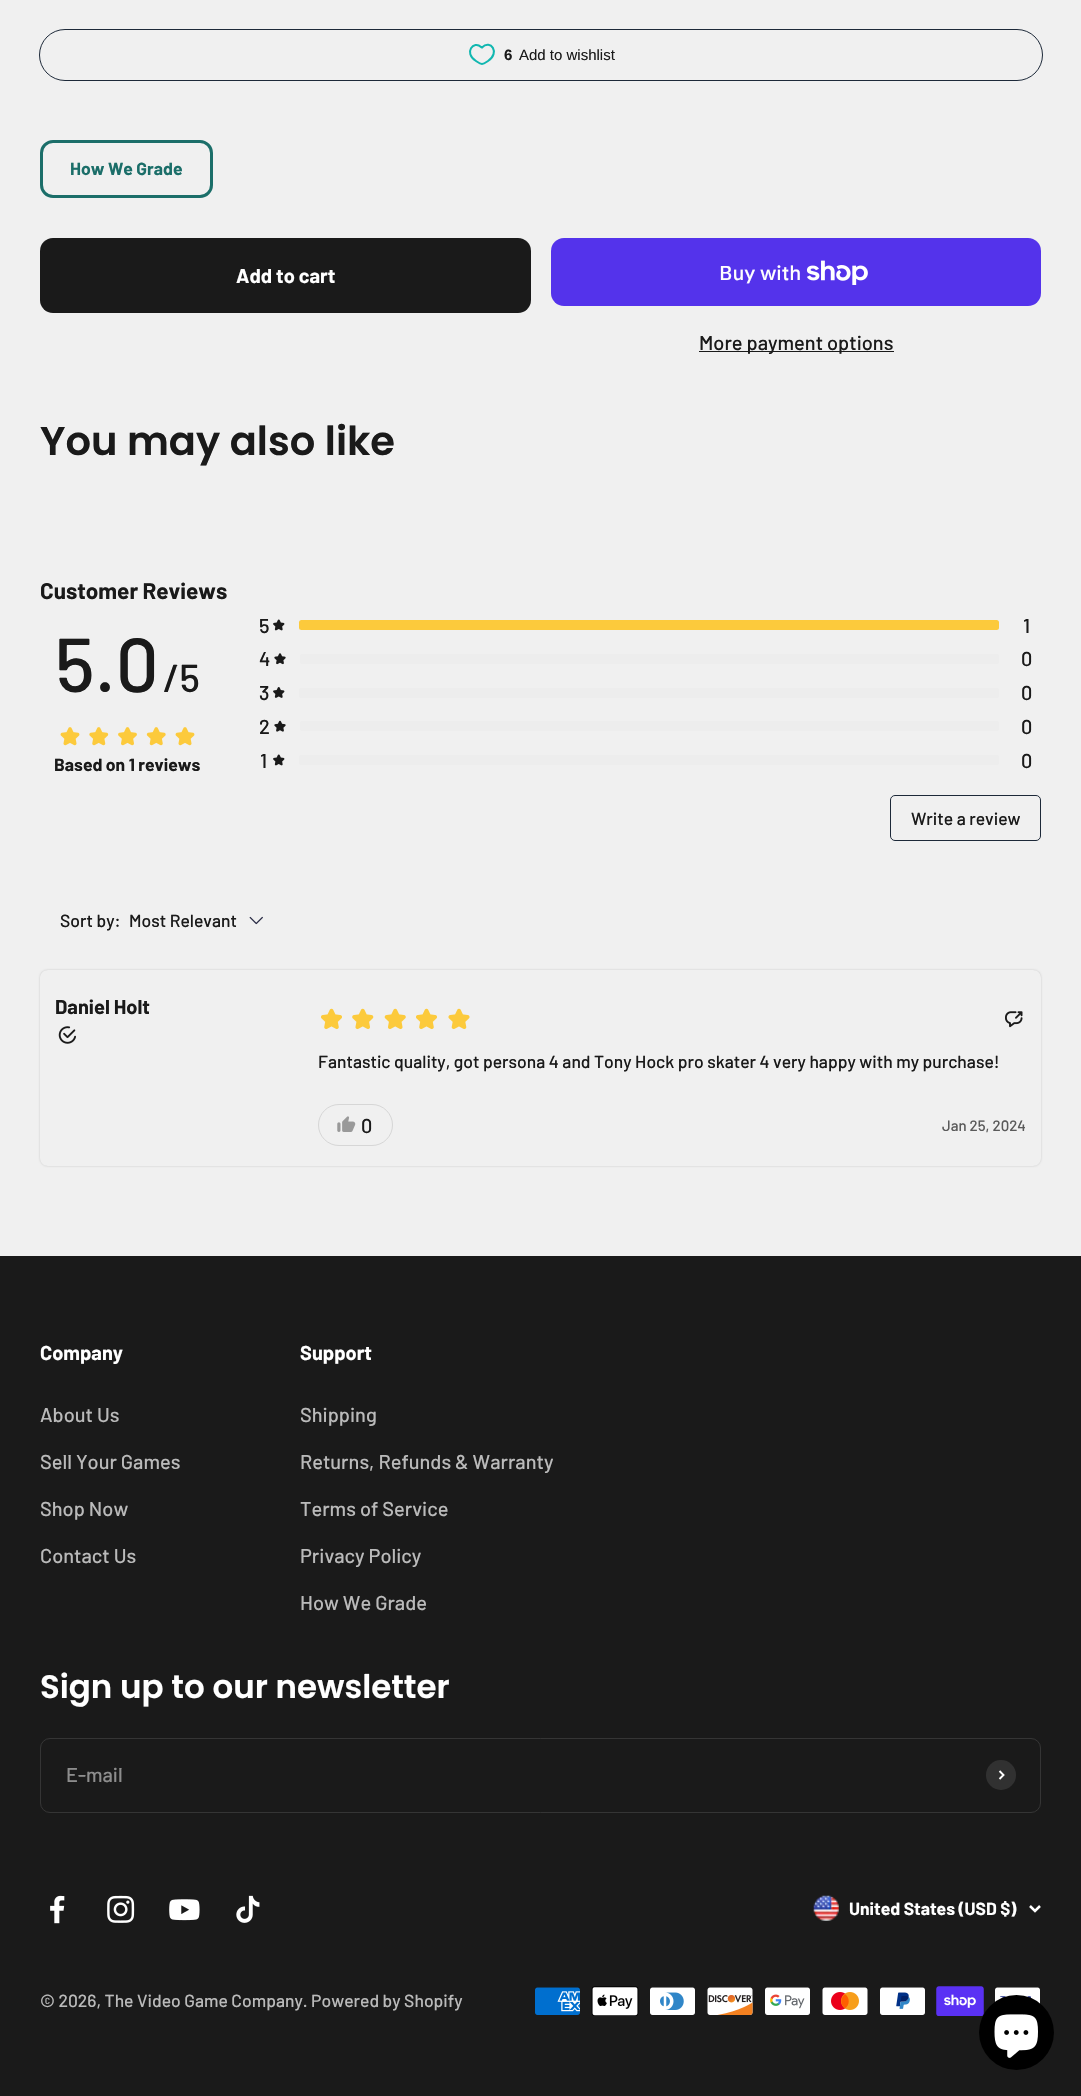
void draw(SkCanvas* c) {
SkPaint p;
p.setAntiAlias(true);
auto F=[&](const char* family, int weight, float size, bool italic = false){SkFontStyle style(weight, SkFontStyle::kNormal_Width,italic ? SkFontStyle::kItalic_Slant : SkFontStyle::kUpright_Slant);SkFont result(fontMgr->matchFamilyStyle(family, style), size);result.setSubpixel(true);return result;};
auto T=[&](const char* s, float x, float y, const SkFont& font){c->drawString(s, x, y, font, p);};
auto R=[&](float x, float y, float w, float h){c->drawRect(SkRect::MakeXYWH(x, y, w, h), p);};
auto Q=[&](float x, float y, float w, float h, float radius){c->drawRoundRect(SkRect::MakeXYWH(x, y, w, h), radius, radius, p);};
auto I=[&](const char* path, float x, float y, float w, float h){auto image = SkImages::DeferredFromEncodedData(SkData::MakeFromFileName(path));c->drawImageRect(image, SkRect::MakeXYWH(x, y, w, h), SkSamplingOptions());};
auto P=[&](const char* data, bool evenOdd = false){SkPath result = *SkParsePath::FromSVGString(data);if (evenOdd) result.setFillType(SkPathFillType::kEvenOdd);return result;};
c->clear(0xfff0f0f0);
p.setStroke(true);
p.setStrokeWidth(1);
p.setColor(0xff1d2939);
c->drawRoundRect(SkRect::MakeXYWH(39.5,29.5,1003,51),25.5,25.5,p);
p.setStrokeWidth(2);
p.setColor(0xff10b7b0);
c->drawPath(P("M481 47l1 .5c8.5-8.5 18.5 5 6 13.5c-1.5 1-4 3-6 3c-2 0-4.5-2-6-3c-13-8.5-2-21 5-14z"),p);
auto f1 = F("Liberation Sans",700,15);
p.setStroke(false);
p.setColor(0xff1a1a1a);
T("6",504,60,f1);
auto f2 = F("Liberation Sans",400,15);
T("Add to wishlist",519,60,f2);
p.setStroke(true);
p.setStrokeWidth(3);
p.setColor(0xff1b6e69);
c->drawRoundRect(SkRect::MakeXYWH(41.5,141.5,170,55),11.5,11.5,p);
auto f3 = F("Barlow",700,17.5);
p.setStroke(false);
T("How We Grade",70,175,f3);
p.setColor(0xff1a1a1a);
Q(40,238,491,75,13);
auto f4 = F("Barlow",700,20);
p.setColor(0xffffffff);
T("Add to cart",236,283,f4);
p.setColor(0xff5433eb);
Q(551,238,490,68,13);
auto f5 = F("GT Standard",500,20);
p.setColor(0xffffffff);
T("Buy with",719,280,f5);
I("1.png",806,260,62,25);
p.setColor(0xff1a1a1a);
R(699,351,195,1);
auto f6 = F("Barlow",500,20);
T("More payment options",699,350,f6);
auto f7 = F("Poppins",600,40);
T("You may also like",40,455,f7);
auto f8 = F("Barlow",700,22.5);
T("Customer Reviews",40,599,f8);
auto f9 = F("Barlow",500,76);
T("5.0",55,692,f9);
auto f10 = F("Barlow",500,39);
T("/5",163,692,f10);
I("2.png",60,727,20,19);
I("3.png",89,727,20,19);
I("4.png",118,727,19,19);
I("5.png",146,727,20,19);
I("2.png",175,727,20,19);
T("Based on 1 reviews",54,771,f3);
T("5",259,633,f6);
I("6.png",273,619,12,12);
p.setColor(0xfffcca3c);
Q(299,620,700,10,2.5);
p.setColor(0xff1a1a1a);
T("1",1023,633,f6);
T("4",259,666,f6);
I("7.png",274,653,12,12);
p.setColor(0xffededed);
Q(300,654,699,10,2.5);
p.setColor(0xff1a1a1a);
T("0",1021,666,f6);
T("3",259,700,f6);
I("8.png",273,687,12,11);
p.setColor(0xffededed);
Q(299,688,700,10,2.5);
p.setColor(0xff1a1a1a);
T("0",1021,700,f6);
T("2",259,734,f6);
I("9.png",274,720,12,12);
p.setColor(0xffededed);
Q(300,721,699,10,2.5);
p.setColor(0xff1a1a1a);
T("0",1021,734,f6);
T("1",260,768,f6);
I("6.png",273,754,12,12);
p.setColor(0xffededed);
Q(299,755,700,10,2.5);
p.setColor(0xff1a1a1a);
T("0",1021,768,f6);
p.setStroke(true);
p.setStrokeWidth(1);
p.setColor(0xff1d2939);
c->drawRoundRect(SkRect::MakeXYWH(890.5,795.5,150,45),4.5,4.5,p);
auto f11 = F("Barlow",500,17.5);
p.setStroke(false);
p.setColor(0xff1a1a1a);
T("Write a review",911,825,f11);
T("Sort by:",60,927,f11);
T("Most Relevant",129,927,f11);
I("10.png",249,916,14,9);
c->save();
c->clipPath(P("M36 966h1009v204h-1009zm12 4h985c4.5 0 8 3.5 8 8v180c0 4.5-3.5 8-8 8h-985c-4.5 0-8-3.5-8-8v-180c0-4.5 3.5-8 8-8z",true),true);
p.setColor(0x33000000);
p.setMaskFilter(SkMaskFilter::MakeBlur(kNormal_SkBlurStyle, 1));
c->drawRoundRect(SkRect::MakeXYWH(40,970,1001,196),8,8,p);
p.setMaskFilter(nullptr);
c->restore();
p.setColor(0xff1a1a1a);
T("Daniel Holt",55,1014,f4);
I("11.png",58,1026,18,18);
I("12.png",321,1008,21,22);
I("13.png",352,1008,22,22);
I("14.png",384,1008,22,22);
I("12.png",416,1008,21,22);
I("15.png",448,1008,22,22);
I("16.png",1005,1011,18,17);
T("Fantastic quality, got persona 4 and Tony Hock pro skater 4 very happy with my purchase!",318,1068,f11);
p.setStroke(true);
p.setColor(0xffd6d6d6);
c->drawRoundRect(SkRect::MakeXYWH(318.5,1104.5,74,41),20.5,20.5,p);
I("17.png",337,1116,19,16);
p.setStroke(false);
p.setColor(0xff1a1a1a);
T("0",361,1133,f6);
auto f12 = F("Barlow",500,15);
p.setColor(0xff5a5a5a);
T("Jan 25, 2024",942,1131,f12);
p.setColor(0xff1a1a1a);
R(0,1256,1081,840);
p.setColor(0xffffffff);
T("Company",40,1360,f4);
p.setColor(0xffbababa);
T("About Us",40,1422,f6);
T("Sell Your Games",40,1469,f6);
T("Shop Now",40,1516,f6);
T("Contact Us",40,1563,f6);
p.setColor(0xffffffff);
T("Support",300,1360,f4);
p.setColor(0xffbababa);
T("Shipping",300,1422,f6);
T("Returns, Refunds & Warranty",300,1469,f6);
T("Terms of Service",300,1516,f6);
T("Privacy Policy",300,1563,f6);
T("How We Grade",300,1610,f6);
auto f13 = F("Poppins",600,32.5);
p.setColor(0xffffffff);
T("Sign up to our newsletter",40,1698,f13);
p.setStroke(true);
p.setColor(0xff353535);
c->drawRoundRect(SkRect::MakeXYWH(40.5,1738.5,1000,74),9.5,9.5,p);
p.setStroke(false);
p.setColor(0xff8d8d8d);
T("E-mail",66,1782,f6);
p.setColor(0xff313131);
c->drawCircle(1001,1775,15,p);
p.setStroke(true);
p.setStrokeWidth(1.9);
p.setColor(0xffffffff);
c->drawPath(P("M999.5 1779l4-4l-4-4"),p);
I("18.png",50,1895,15,29);
I("19.png",107,1895,28,28);
I("20.png",169,1899,31,22);
I("21.png",236,1895,24,28);
I("22.png",813,1895,26,26);
p.setStroke(false);
T("United States (USD $)",849,1915,f3);
p.setStroke(true);
p.setStrokeWidth(2.5);
c->drawPath(P("M1030 1906l5 5l5-5"),p);
p.setStroke(false);
p.setColor(0xffbababa);
T("© 2026, The Video Game Company. Powered by Shopify",40,2007,f11);
I("23.png",535,1987,45,28);
I("24.png",591,1986,48,30);
I("25.png",650,1987,45,28);
I("26.png",707,1987,46,28);
I("27.png",765,1987,45,28);
I("28.png",822,1987,46,28);
I("29.png",880,1987,45,28);
I("30.png",936,1986,48,30);
I("31.png",995,1987,45,17);
p.setColor(0xff000000);
c->drawCircle(1016.5,2032.5,37.5,p);
I("32.png",994,2014,44,44);
}
